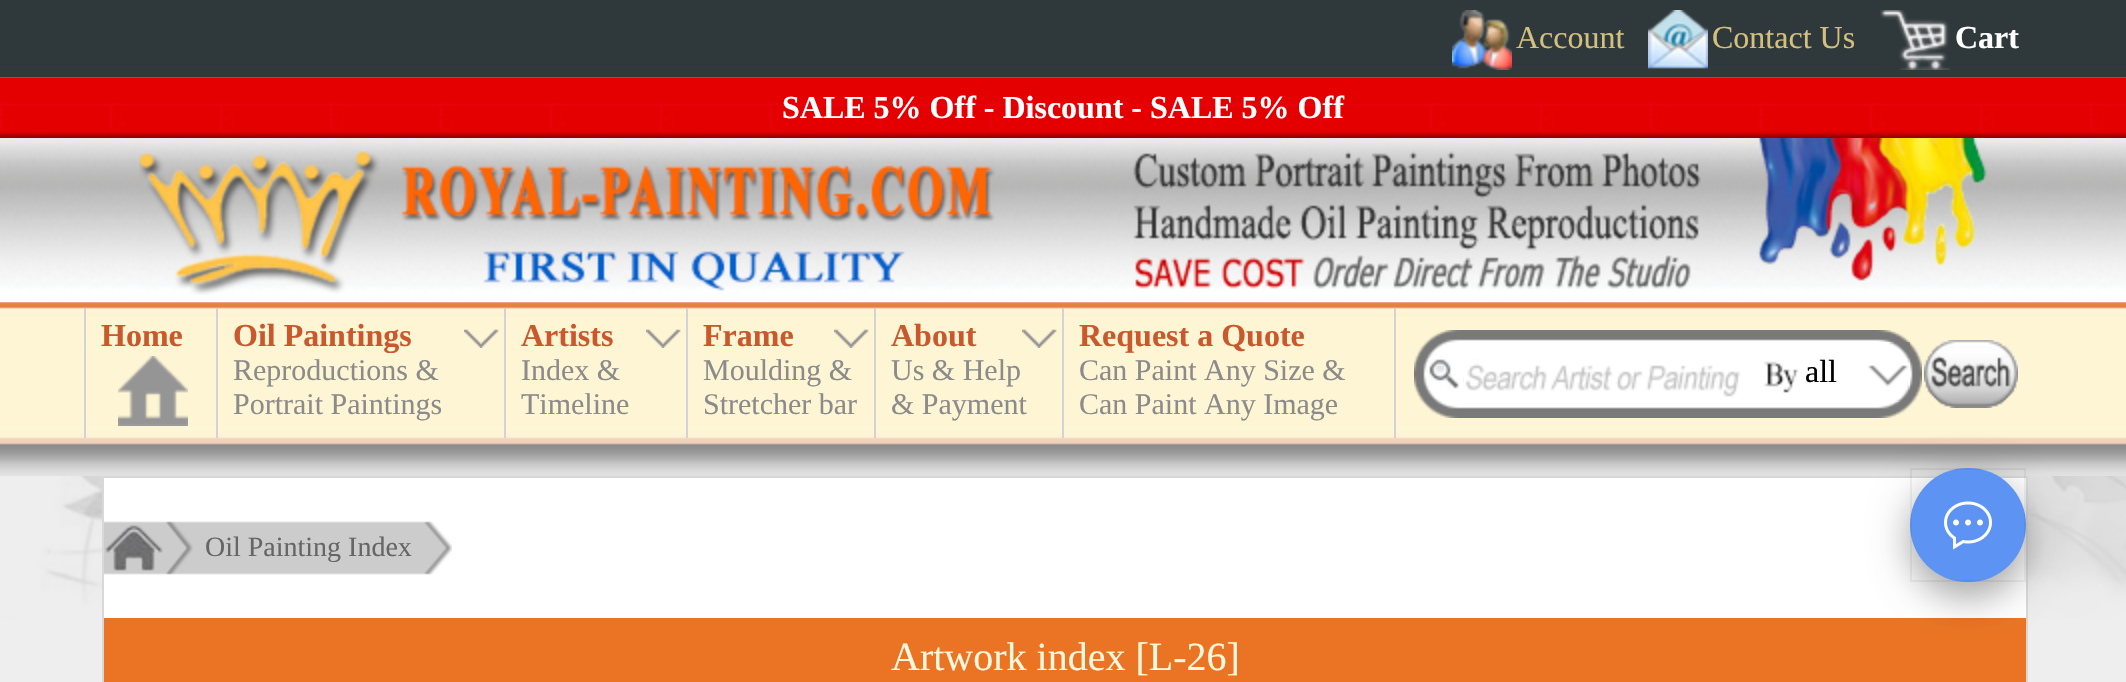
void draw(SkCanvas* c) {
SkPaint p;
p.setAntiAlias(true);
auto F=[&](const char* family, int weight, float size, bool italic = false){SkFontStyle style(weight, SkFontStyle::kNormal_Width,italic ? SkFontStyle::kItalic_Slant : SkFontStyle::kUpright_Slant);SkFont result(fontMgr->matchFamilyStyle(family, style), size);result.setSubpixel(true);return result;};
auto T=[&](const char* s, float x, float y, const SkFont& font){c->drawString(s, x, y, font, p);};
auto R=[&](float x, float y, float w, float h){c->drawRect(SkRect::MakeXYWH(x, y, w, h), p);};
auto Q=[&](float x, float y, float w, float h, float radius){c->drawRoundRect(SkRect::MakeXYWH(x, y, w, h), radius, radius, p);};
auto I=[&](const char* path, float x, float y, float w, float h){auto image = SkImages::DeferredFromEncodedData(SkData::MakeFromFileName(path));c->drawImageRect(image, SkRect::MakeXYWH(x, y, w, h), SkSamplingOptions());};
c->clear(0xffffffff);
I("1.png",0,476,2126,206);
I("2.png",0,0,2126,78);
I("3.png",1452,10,60,60);
auto f1 = F("Liberation Serif",400,32);
p.setColor(0xffd4c07e);
T("Account",1516,48,f1);
I("4.png",1648,10,60,59);
T("Contact Us",1712,48,f1);
I("5.png",1880,10,71,60);
auto f2 = F("Liberation Serif",700,32);
p.setColor(0xffffffff);
T("Cart",1955,48,f2);
I("6.png",0,78,2126,60);
T("SALE 5% Off - Discount - SALE 5% Off",782,118,f2);
I("7.png",0,138,2126,164);
I("8.png",139,151,856,144);
I("9.png",1133,138,854,151);
I("10.png",0,302,2126,174);
p.setColor(0xffd3d3d3);
R(216,308,2,130);
R(84,308,2,130);
p.setColor(0xffc9592c);
T("Home",101,346,f2);
I("11.png",118,356,70,70);
I("12.png",464,329,35,19);
p.setColor(0xffd3d3d3);
R(504,308,2,130);
p.setColor(0xffc9592c);
T("Oil Paintings",233,346,f2);
auto f3 = F("Liberation Serif",400,30);
p.setColor(0xff8b8b8b);
T("Reproductions &",233,380,f3);
T("Portrait Paintings",233,414,f3);
I("12.png",646,329,35,19);
p.setColor(0xffd3d3d3);
R(686,308,2,130);
p.setColor(0xffc9592c);
T("Artists",521,346,f2);
p.setColor(0xff8b8b8b);
T("Index &",521,380,f3);
T("Timeline",521,414,f3);
I("12.png",834,329,35,19);
p.setColor(0xffd3d3d3);
R(874,308,2,130);
p.setColor(0xffc9592c);
T("Frame",703,346,f2);
p.setColor(0xff8b8b8b);
T("Moulding &",703,380,f3);
T("Stretcher bar",703,414,f3);
I("12.png",1022,329,35,19);
p.setColor(0xffd3d3d3);
R(1062,308,2,130);
p.setColor(0xffc9592c);
T("About",891,346,f2);
p.setColor(0xff8b8b8b);
T("Us & Help",891,380,f3);
T("& Payment",891,414,f3);
p.setColor(0xffd3d3d3);
R(1394,308,2,130);
p.setColor(0xffc9592c);
T("Request a Quote",1079,346,f2);
p.setColor(0xff8b8b8b);
T("Can Paint Any Size &",1079,380,f3);
T("Can Paint Any Image",1079,414,f3);
I("13.png",1414,330,508,88);
I("14.png",1464,360,277,37);
I("15.png",1881,342,29,60);
p.setColor(0xff000000);
T("all",1805,382,f1);
I("16.png",1924,340,94,68);
p.setColor(0xffffffff);
R(104,478,1922,140);
p.setStroke(true);
p.setStrokeWidth(2);
p.setColor(0xffd8d8d8);
c->drawRect(SkRect::MakeXYWH(103,477,1924,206),p);
I("17.png",104,521,60,54);
I("18.png",164,521,30,54);
I("19.png",194,521,228,54);
auto f4 = F("Liberation Serif",400,28);
p.setStroke(false);
p.setColor(0xff666666);
T("Oil Painting Index",205,556,f4);
I("20.png",422,521,30,54);
p.setColor(0xffeb7424);
R(104,618,1922,64);
auto f5 = F("Liberation Serif",400,40);
p.setColor(0xfffef8de);
T("Artwork index [L-26]",891,670,f5);
p.setColor(0x30000000);
p.setMaskFilter(SkMaskFilter::MakeBlur(kNormal_SkBlurStyle, 20));
c->drawRoundRect(SkRect::MakeXYWH(1910,480,116,114),57,57,p);
p.setMaskFilter(nullptr);
p.setColor(0x33000000);
p.setMaskFilter(SkMaskFilter::MakeBlur(kNormal_SkBlurStyle, 17));
c->drawRoundRect(SkRect::MakeXYWH(1910,484,116,114),57,57,p);
p.setMaskFilter(nullptr);
p.setColor(0xff5d94f3);
Q(1910,468,116,114,57);
p.setStroke(true);
p.setColor(0x0d000000);
c->drawRect(SkRect::MakeXYWH(1911,469,114,112),p);
I("21.png",1944,501,48,49);
}
